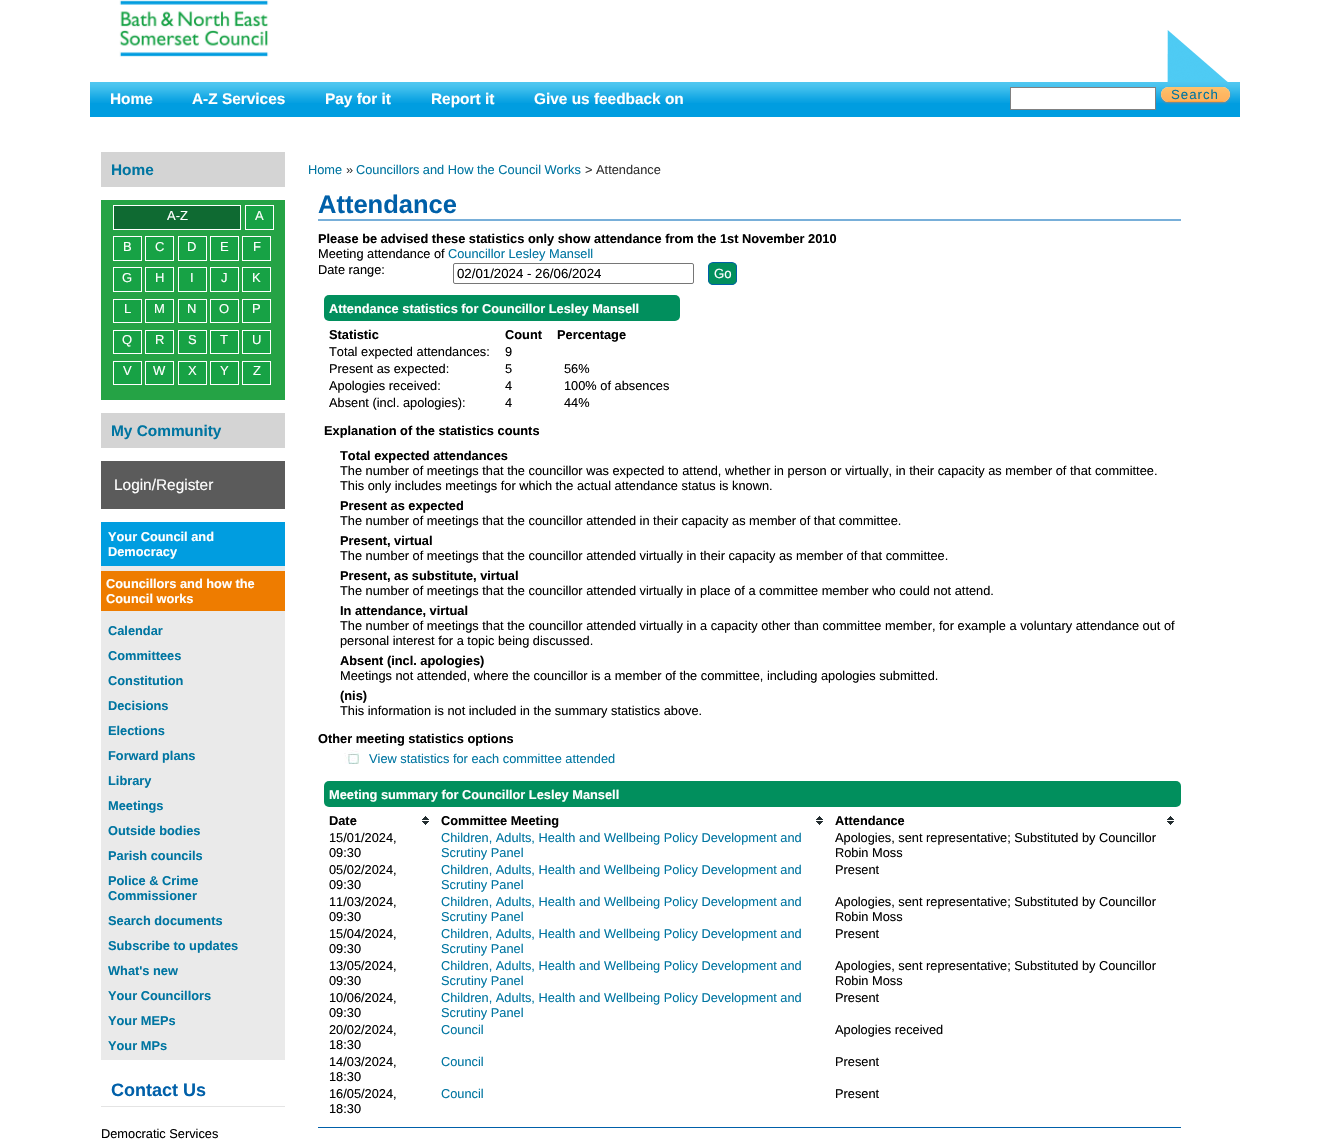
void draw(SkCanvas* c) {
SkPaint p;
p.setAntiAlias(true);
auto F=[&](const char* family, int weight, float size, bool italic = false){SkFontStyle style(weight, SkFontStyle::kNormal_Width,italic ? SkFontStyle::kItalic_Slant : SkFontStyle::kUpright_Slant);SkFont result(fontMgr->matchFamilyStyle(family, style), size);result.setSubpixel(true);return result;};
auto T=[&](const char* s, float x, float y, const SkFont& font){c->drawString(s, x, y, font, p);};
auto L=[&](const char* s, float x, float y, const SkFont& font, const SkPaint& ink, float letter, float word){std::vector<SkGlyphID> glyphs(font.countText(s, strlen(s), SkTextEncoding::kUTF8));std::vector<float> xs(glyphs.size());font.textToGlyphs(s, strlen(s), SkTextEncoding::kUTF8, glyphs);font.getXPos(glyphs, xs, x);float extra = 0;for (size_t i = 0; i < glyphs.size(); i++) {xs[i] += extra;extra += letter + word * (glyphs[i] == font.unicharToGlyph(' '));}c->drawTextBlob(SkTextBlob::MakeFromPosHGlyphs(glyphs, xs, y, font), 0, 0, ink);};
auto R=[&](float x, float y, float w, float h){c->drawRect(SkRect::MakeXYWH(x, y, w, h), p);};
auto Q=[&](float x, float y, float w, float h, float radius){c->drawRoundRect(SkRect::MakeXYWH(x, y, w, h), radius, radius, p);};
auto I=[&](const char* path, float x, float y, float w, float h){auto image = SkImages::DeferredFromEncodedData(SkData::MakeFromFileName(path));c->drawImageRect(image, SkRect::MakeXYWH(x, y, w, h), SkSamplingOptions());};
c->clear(0xffffffff);
I("1.png",1167,30,61,52);
I("2.png",119,0,150,57);
p.setColor(0xff009de0);
R(90,103,1150,14);
I("3.png",90,82,1150,21);
auto f1 = F("Liberation Sans",700,15.4);
p.setColor(0xffffffff);
T("Home",110,104,f1);
T("A-Z Services",192,104,f1);
T("Pay for it",325,104,f1);
T("Report it",431,104,f1);
T("Give us feedback on",534,104,f1);
c->drawRect(SkRect::MakeXYWH(1010.5,87.5,145,22),p);
p.setStroke(true);
p.setStrokeWidth(1);
p.setColor(0xff808080);
c->drawRect(SkRect::MakeXYWH(1010.5,87.5,145,22),p);
p.setStroke(false);
p.setColor(0xff888888);
p.setMaskFilter(SkMaskFilter::MakeBlur(kNormal_SkBlurStyle, 1));
c->drawRoundRect(SkRect::MakeXYWH(1161,88,69,15),7.5,7.5,p);
p.setMaskFilter(nullptr);
p.setColor(0xffefefef);
Q(1161,87,69,15,7.5);
I("4.png",1161,87,69,15);
auto f2 = F("Liberation Sans",400,13.25);
p.setColor(0xff0075a1);
L("Search",1171,99,f2,p,1,0);
p.setColor(0xffd4d4d4);
R(101,152,184,35);
p.setColor(0xff0075a1);
T("Home",111,175,f1);
p.setColor(0xff25a345);
R(101,200,184,200);
p.setColor(0xff17a245);
c->drawRect(SkRect::MakeXYWH(245.5,205.5,28,24),p);
p.setStroke(true);
p.setColor(0xffffffff);
c->drawRect(SkRect::MakeXYWH(245.5,205.5,28,24),p);
auto f3 = F("Liberation Sans",400,13);
p.setStroke(false);
T("A",255,220,f3);
p.setColor(0xff17a245);
c->drawRect(SkRect::MakeXYWH(113.5,236.5,28,24),p);
p.setStroke(true);
p.setColor(0xffffffff);
c->drawRect(SkRect::MakeXYWH(113.5,236.5,28,24),p);
p.setStroke(false);
T("B",123,251,f3);
p.setColor(0xff17a245);
c->drawRect(SkRect::MakeXYWH(145.5,236.5,28,24),p);
p.setStroke(true);
p.setColor(0xffffffff);
c->drawRect(SkRect::MakeXYWH(145.5,236.5,28,24),p);
p.setStroke(false);
T("C",155,251,f3);
p.setColor(0xff17a245);
c->drawRect(SkRect::MakeXYWH(178.5,236.5,28,24),p);
p.setStroke(true);
p.setColor(0xffffffff);
c->drawRect(SkRect::MakeXYWH(178.5,236.5,28,24),p);
p.setStroke(false);
T("D",187,251,f3);
p.setColor(0xff17a245);
c->drawRect(SkRect::MakeXYWH(210.5,236.5,28,24),p);
p.setStroke(true);
p.setColor(0xffffffff);
c->drawRect(SkRect::MakeXYWH(210.5,236.5,28,24),p);
p.setStroke(false);
T("E",220,251,f3);
p.setColor(0xff17a245);
c->drawRect(SkRect::MakeXYWH(242.5,236.5,28,24),p);
p.setStroke(true);
p.setColor(0xffffffff);
c->drawRect(SkRect::MakeXYWH(242.5,236.5,28,24),p);
p.setStroke(false);
T("F",253,251,f3);
p.setColor(0xff17a245);
c->drawRect(SkRect::MakeXYWH(113.5,267.5,28,24),p);
p.setStroke(true);
p.setColor(0xffffffff);
c->drawRect(SkRect::MakeXYWH(113.5,267.5,28,24),p);
p.setStroke(false);
T("G",122,282,f3);
p.setColor(0xff17a245);
c->drawRect(SkRect::MakeXYWH(145.5,267.5,28,24),p);
p.setStroke(true);
p.setColor(0xffffffff);
c->drawRect(SkRect::MakeXYWH(145.5,267.5,28,24),p);
p.setStroke(false);
T("H",155,282,f3);
p.setColor(0xff17a245);
c->drawRect(SkRect::MakeXYWH(178.5,267.5,28,24),p);
p.setStroke(true);
p.setColor(0xffffffff);
c->drawRect(SkRect::MakeXYWH(178.5,267.5,28,24),p);
p.setStroke(false);
T("I",190,282,f3);
p.setColor(0xff17a245);
c->drawRect(SkRect::MakeXYWH(210.5,267.5,28,24),p);
p.setStroke(true);
p.setColor(0xffffffff);
c->drawRect(SkRect::MakeXYWH(210.5,267.5,28,24),p);
p.setStroke(false);
T("J",221,282,f3);
p.setColor(0xff17a245);
c->drawRect(SkRect::MakeXYWH(242.5,267.5,28,24),p);
p.setStroke(true);
p.setColor(0xffffffff);
c->drawRect(SkRect::MakeXYWH(242.5,267.5,28,24),p);
p.setStroke(false);
T("K",252,282,f3);
p.setColor(0xff17a245);
c->drawRect(SkRect::MakeXYWH(113.5,299.5,28,23),p);
p.setStroke(true);
p.setColor(0xffffffff);
c->drawRect(SkRect::MakeXYWH(113.5,299.5,28,23),p);
p.setStroke(false);
T("L",124,313,f3);
p.setColor(0xff17a245);
c->drawRect(SkRect::MakeXYWH(145.5,299.5,28,23),p);
p.setStroke(true);
p.setColor(0xffffffff);
c->drawRect(SkRect::MakeXYWH(145.5,299.5,28,23),p);
p.setStroke(false);
T("M",154,313,f3);
p.setColor(0xff17a245);
c->drawRect(SkRect::MakeXYWH(178.5,299.5,28,23),p);
p.setStroke(true);
p.setColor(0xffffffff);
c->drawRect(SkRect::MakeXYWH(178.5,299.5,28,23),p);
p.setStroke(false);
T("N",187,313,f3);
p.setColor(0xff17a245);
c->drawRect(SkRect::MakeXYWH(210.5,299.5,28,23),p);
p.setStroke(true);
p.setColor(0xffffffff);
c->drawRect(SkRect::MakeXYWH(210.5,299.5,28,23),p);
p.setStroke(false);
T("O",219,313,f3);
p.setColor(0xff17a245);
c->drawRect(SkRect::MakeXYWH(242.5,299.5,28,23),p);
p.setStroke(true);
p.setColor(0xffffffff);
c->drawRect(SkRect::MakeXYWH(242.5,299.5,28,23),p);
p.setStroke(false);
T("P",252,313,f3);
p.setColor(0xff17a245);
c->drawRect(SkRect::MakeXYWH(113.5,330.5,28,23),p);
p.setStroke(true);
p.setColor(0xffffffff);
c->drawRect(SkRect::MakeXYWH(113.5,330.5,28,23),p);
p.setStroke(false);
T("Q",122,344,f3);
p.setColor(0xff17a245);
c->drawRect(SkRect::MakeXYWH(145.5,330.5,28,23),p);
p.setStroke(true);
p.setColor(0xffffffff);
c->drawRect(SkRect::MakeXYWH(145.5,330.5,28,23),p);
p.setStroke(false);
T("R",155,344,f3);
p.setColor(0xff17a245);
c->drawRect(SkRect::MakeXYWH(178.5,330.5,28,23),p);
p.setStroke(true);
p.setColor(0xffffffff);
c->drawRect(SkRect::MakeXYWH(178.5,330.5,28,23),p);
p.setStroke(false);
T("S",188,344,f3);
p.setColor(0xff17a245);
c->drawRect(SkRect::MakeXYWH(210.5,330.5,28,23),p);
p.setStroke(true);
p.setColor(0xffffffff);
c->drawRect(SkRect::MakeXYWH(210.5,330.5,28,23),p);
p.setStroke(false);
T("T",220,344,f3);
p.setColor(0xff17a245);
c->drawRect(SkRect::MakeXYWH(242.5,330.5,28,23),p);
p.setStroke(true);
p.setColor(0xffffffff);
c->drawRect(SkRect::MakeXYWH(242.5,330.5,28,23),p);
p.setStroke(false);
T("U",252,344,f3);
p.setColor(0xff17a245);
c->drawRect(SkRect::MakeXYWH(113.5,361.5,28,23),p);
p.setStroke(true);
p.setColor(0xffffffff);
c->drawRect(SkRect::MakeXYWH(113.5,361.5,28,23),p);
p.setStroke(false);
T("V",123,375,f3);
p.setColor(0xff17a245);
c->drawRect(SkRect::MakeXYWH(145.5,361.5,28,23),p);
p.setStroke(true);
p.setColor(0xffffffff);
c->drawRect(SkRect::MakeXYWH(145.5,361.5,28,23),p);
p.setStroke(false);
T("W",153,375,f3);
p.setColor(0xff17a245);
c->drawRect(SkRect::MakeXYWH(178.5,361.5,28,23),p);
p.setStroke(true);
p.setColor(0xffffffff);
c->drawRect(SkRect::MakeXYWH(178.5,361.5,28,23),p);
p.setStroke(false);
T("X",188,375,f3);
p.setColor(0xff17a245);
c->drawRect(SkRect::MakeXYWH(210.5,361.5,28,23),p);
p.setStroke(true);
p.setColor(0xffffffff);
c->drawRect(SkRect::MakeXYWH(210.5,361.5,28,23),p);
p.setStroke(false);
T("Y",220,375,f3);
p.setColor(0xff17a245);
c->drawRect(SkRect::MakeXYWH(242.5,361.5,28,23),p);
p.setStroke(true);
p.setColor(0xffffffff);
c->drawRect(SkRect::MakeXYWH(242.5,361.5,28,23),p);
p.setStroke(false);
T("Z",253,375,f3);
p.setColor(0xff0f6a32);
c->drawRect(SkRect::MakeXYWH(113.5,205.5,127,24),p);
p.setStroke(true);
p.setColor(0xffffffff);
c->drawRect(SkRect::MakeXYWH(113.5,205.5,127,24),p);
p.setStroke(false);
T("A-Z",167,220,f3);
p.setColor(0xffd4d4d4);
R(101,413,184,35);
p.setColor(0xff0075a1);
T("My Community",111,436,f1);
p.setColor(0xff5b5b5b);
R(101,461,184,48);
auto f4 = F("Liberation Sans",400,15.4);
p.setColor(0xffffffff);
T("Login/Register",114,490,f4);
p.setColor(0xffeaeaea);
R(101,566,184,494);
p.setColor(0xff009de0);
R(101,522,184,44);
auto f5 = F("Liberation Sans",700,12.8);
p.setColor(0xffffffff);
T("Your Council and",108,541,f5);
T("Democracy",108,556,f5);
p.setColor(0xffee7c00);
R(101,571,184,40);
p.setColor(0xffffffff);
T("Councillors and how the",106,588,f5);
T("Council works",106,603,f5);
p.setColor(0xff0075a1);
T("Calendar",108,635,f5);
T("Committees",108,660,f5);
T("Constitution",108,685,f5);
T("Decisions",108,710,f5);
T("Elections",108,735,f5);
T("Forward plans",108,760,f5);
T("Library",108,785,f5);
T("Meetings",108,810,f5);
T("Outside bodies",108,835,f5);
T("Parish councils",108,860,f5);
T("Police & Crime",108,885,f5);
T("Commissioner",108,900,f5);
T("Search documents",108,925,f5);
T("Subscribe to updates",108,950,f5);
T("What's new",108,975,f5);
T("Your Councillors",108,1000,f5);
T("Your MEPs",108,1025,f5);
T("Your MPs",108,1050,f5);
p.setColor(0xffe4e4e4);
R(101,1106,184,1);
auto f6 = F("Liberation Sans",700,18);
p.setColor(0xff0060a9);
T("Contact Us",111,1096,f6);
auto f7 = F("Liberation Sans",400,12.8);
p.setColor(0xff000000);
T("Democratic Services",101,1138,f7);
p.setColor(0xff0075a1);
T("Home",308,174,f7);
p.setColor(0xff333333);
T("»",346,174,f7);
p.setColor(0xff0075a1);
T("Councillors and How the Council Works",356,174,f7);
p.setColor(0xff333333);
T("> Attendance",585,174,f7);
p.setColor(0xff78afd9);
R(318,219,863,2);
auto f8 = F("Liberation Sans",700,25.5);
p.setColor(0xff0060a9);
T("Attendance",318,213,f8);
p.setColor(0xff000000);
T("Please be advised these statistics only show attendance from the 1st November 2010",318,243,f5);
T("Meeting attendance of",318,258,f7);
p.setColor(0xff0075a1);
T("Councillor Lesley Mansell",448,258,f7);
p.setColor(0xff000000);
T("Date range:",318,274,f7);
p.setStroke(true);
p.setColor(0xff767676);
c->drawRoundRect(SkRect::MakeXYWH(453.5,263.5,240,20),1.5,1.5,p);
p.setStroke(false);
p.setColor(0xff000000);
T("02/01/2024 - 26/06/2024",457,278,f2);
I("5.png",708,263,29,22);
p.setStroke(true);
p.setColor(0xff0060a9);
c->drawRoundRect(SkRect::MakeXYWH(708.5,262.5,28,22),4.5,4.5,p);
p.setStroke(false);
p.setColor(0xffffffff);
T("Go",714,278,f2);
I("6.png",324,295,356,26);
T("Attendance statistics for Councillor Lesley Mansell",329,313,f5);
p.setColor(0xff000000);
T("Statistic",329,339,f5);
T("Count",505,339,f5);
T("Percentage",557,339,f5);
T("Total expected attendances:",329,356,f7);
T("9",505,356,f7);
T("Present as expected:",329,373,f7);
T("5",505,373,f7);
T("56%",564,373,f7);
T("Apologies received:",329,390,f7);
T("4",505,390,f7);
T("100% of absences",564,390,f7);
T("Absent (incl. apologies):",329,407,f7);
T("4",505,407,f7);
T("44%",564,407,f7);
T("Explanation of the statistics counts",324,435,f5);
T("Total expected attendances",340,460,f5);
T("The number of meetings that the councillor was expected to attend, whether in person or virtually, in their capacity as member of that committee.",340,475,f7);
T("This only includes meetings for which the actual attendance status is known.",340,490,f7);
T("Present as expected",340,510,f5);
T("The number of meetings that the councillor attended in their capacity as member of that committee.",340,525,f7);
T("Present, virtual",340,545,f5);
T("The number of meetings that the councillor attended virtually in their capacity as member of that committee.",340,560,f7);
T("Present, as substitute, virtual",340,580,f5);
T("The number of meetings that the councillor attended virtually in place of a committee member who could not attend.",340,595,f7);
T("In attendance, virtual",340,615,f5);
T("The number of meetings that the councillor attended virtually in a capacity other than committee member, for example a voluntary attendance out of",340,630,f7);
T("personal interest for a topic being discussed.",340,645,f7);
T("Absent (incl. apologies)",340,665,f5);
T("Meetings not attended, where the councillor is a member of the committee, including apologies submitted.",340,680,f7);
T("(nis)",340,700,f5);
T("This information is not included in the summary statistics above.",340,715,f7);
T("Other meeting statistics options",318,743,f5);
I("7.png",344,749,15,15);
p.setColor(0xff0075a1);
T("View statistics for each committee attended",369,763,f7);
I("8.png",324,781,857,26);
p.setColor(0xffffffff);
T("Meeting summary for Councillor Lesley Mansell",329,799,f5);
I("9.png",422,816,7,9);
p.setColor(0xff000000);
T("Date",329,825,f5);
I("9.png",816,816,7,9);
T("Committee Meeting",441,825,f5);
I("9.png",1167,816,7,9);
T("Attendance",835,825,f5);
T("15/01/2024,",329,842,f7);
T("09:30",329,857,f7);
p.setColor(0xff0075a1);
T("Children, Adults, Health and Wellbeing Policy Development and",441,842,f7);
T("Scrutiny Panel",441,857,f7);
p.setColor(0xff000000);
T("Apologies, sent representative; Substituted by Councillor",835,842,f7);
T("Robin Moss",835,857,f7);
T("05/02/2024,",329,874,f7);
T("09:30",329,889,f7);
p.setColor(0xff0075a1);
T("Children, Adults, Health and Wellbeing Policy Development and",441,874,f7);
T("Scrutiny Panel",441,889,f7);
p.setColor(0xff000000);
T("Present",835,874,f7);
T("11/03/2024,",329,906,f7);
T("09:30",329,921,f7);
p.setColor(0xff0075a1);
T("Children, Adults, Health and Wellbeing Policy Development and",441,906,f7);
T("Scrutiny Panel",441,921,f7);
p.setColor(0xff000000);
T("Apologies, sent representative; Substituted by Councillor",835,906,f7);
T("Robin Moss",835,921,f7);
T("15/04/2024,",329,938,f7);
T("09:30",329,953,f7);
p.setColor(0xff0075a1);
T("Children, Adults, Health and Wellbeing Policy Development and",441,938,f7);
T("Scrutiny Panel",441,953,f7);
p.setColor(0xff000000);
T("Present",835,938,f7);
T("13/05/2024,",329,970,f7);
T("09:30",329,985,f7);
p.setColor(0xff0075a1);
T("Children, Adults, Health and Wellbeing Policy Development and",441,970,f7);
T("Scrutiny Panel",441,985,f7);
p.setColor(0xff000000);
T("Apologies, sent representative; Substituted by Councillor",835,970,f7);
T("Robin Moss",835,985,f7);
T("10/06/2024,",329,1002,f7);
T("09:30",329,1017,f7);
p.setColor(0xff0075a1);
T("Children, Adults, Health and Wellbeing Policy Development and",441,1002,f7);
T("Scrutiny Panel",441,1017,f7);
p.setColor(0xff000000);
T("Present",835,1002,f7);
T("20/02/2024,",329,1034,f7);
T("18:30",329,1049,f7);
p.setColor(0xff0075a1);
T("Council",441,1034,f7);
p.setColor(0xff000000);
T("Apologies received",835,1034,f7);
T("14/03/2024,",329,1066,f7);
T("18:30",329,1081,f7);
p.setColor(0xff0075a1);
T("Council",441,1066,f7);
p.setColor(0xff000000);
T("Present",835,1066,f7);
T("16/05/2024,",329,1098,f7);
T("18:30",329,1113,f7);
p.setColor(0xff0075a1);
T("Council",441,1098,f7);
p.setColor(0xff000000);
T("Present",835,1098,f7);
p.setColor(0xff0060a9);
R(318,1127,863,1);
}
